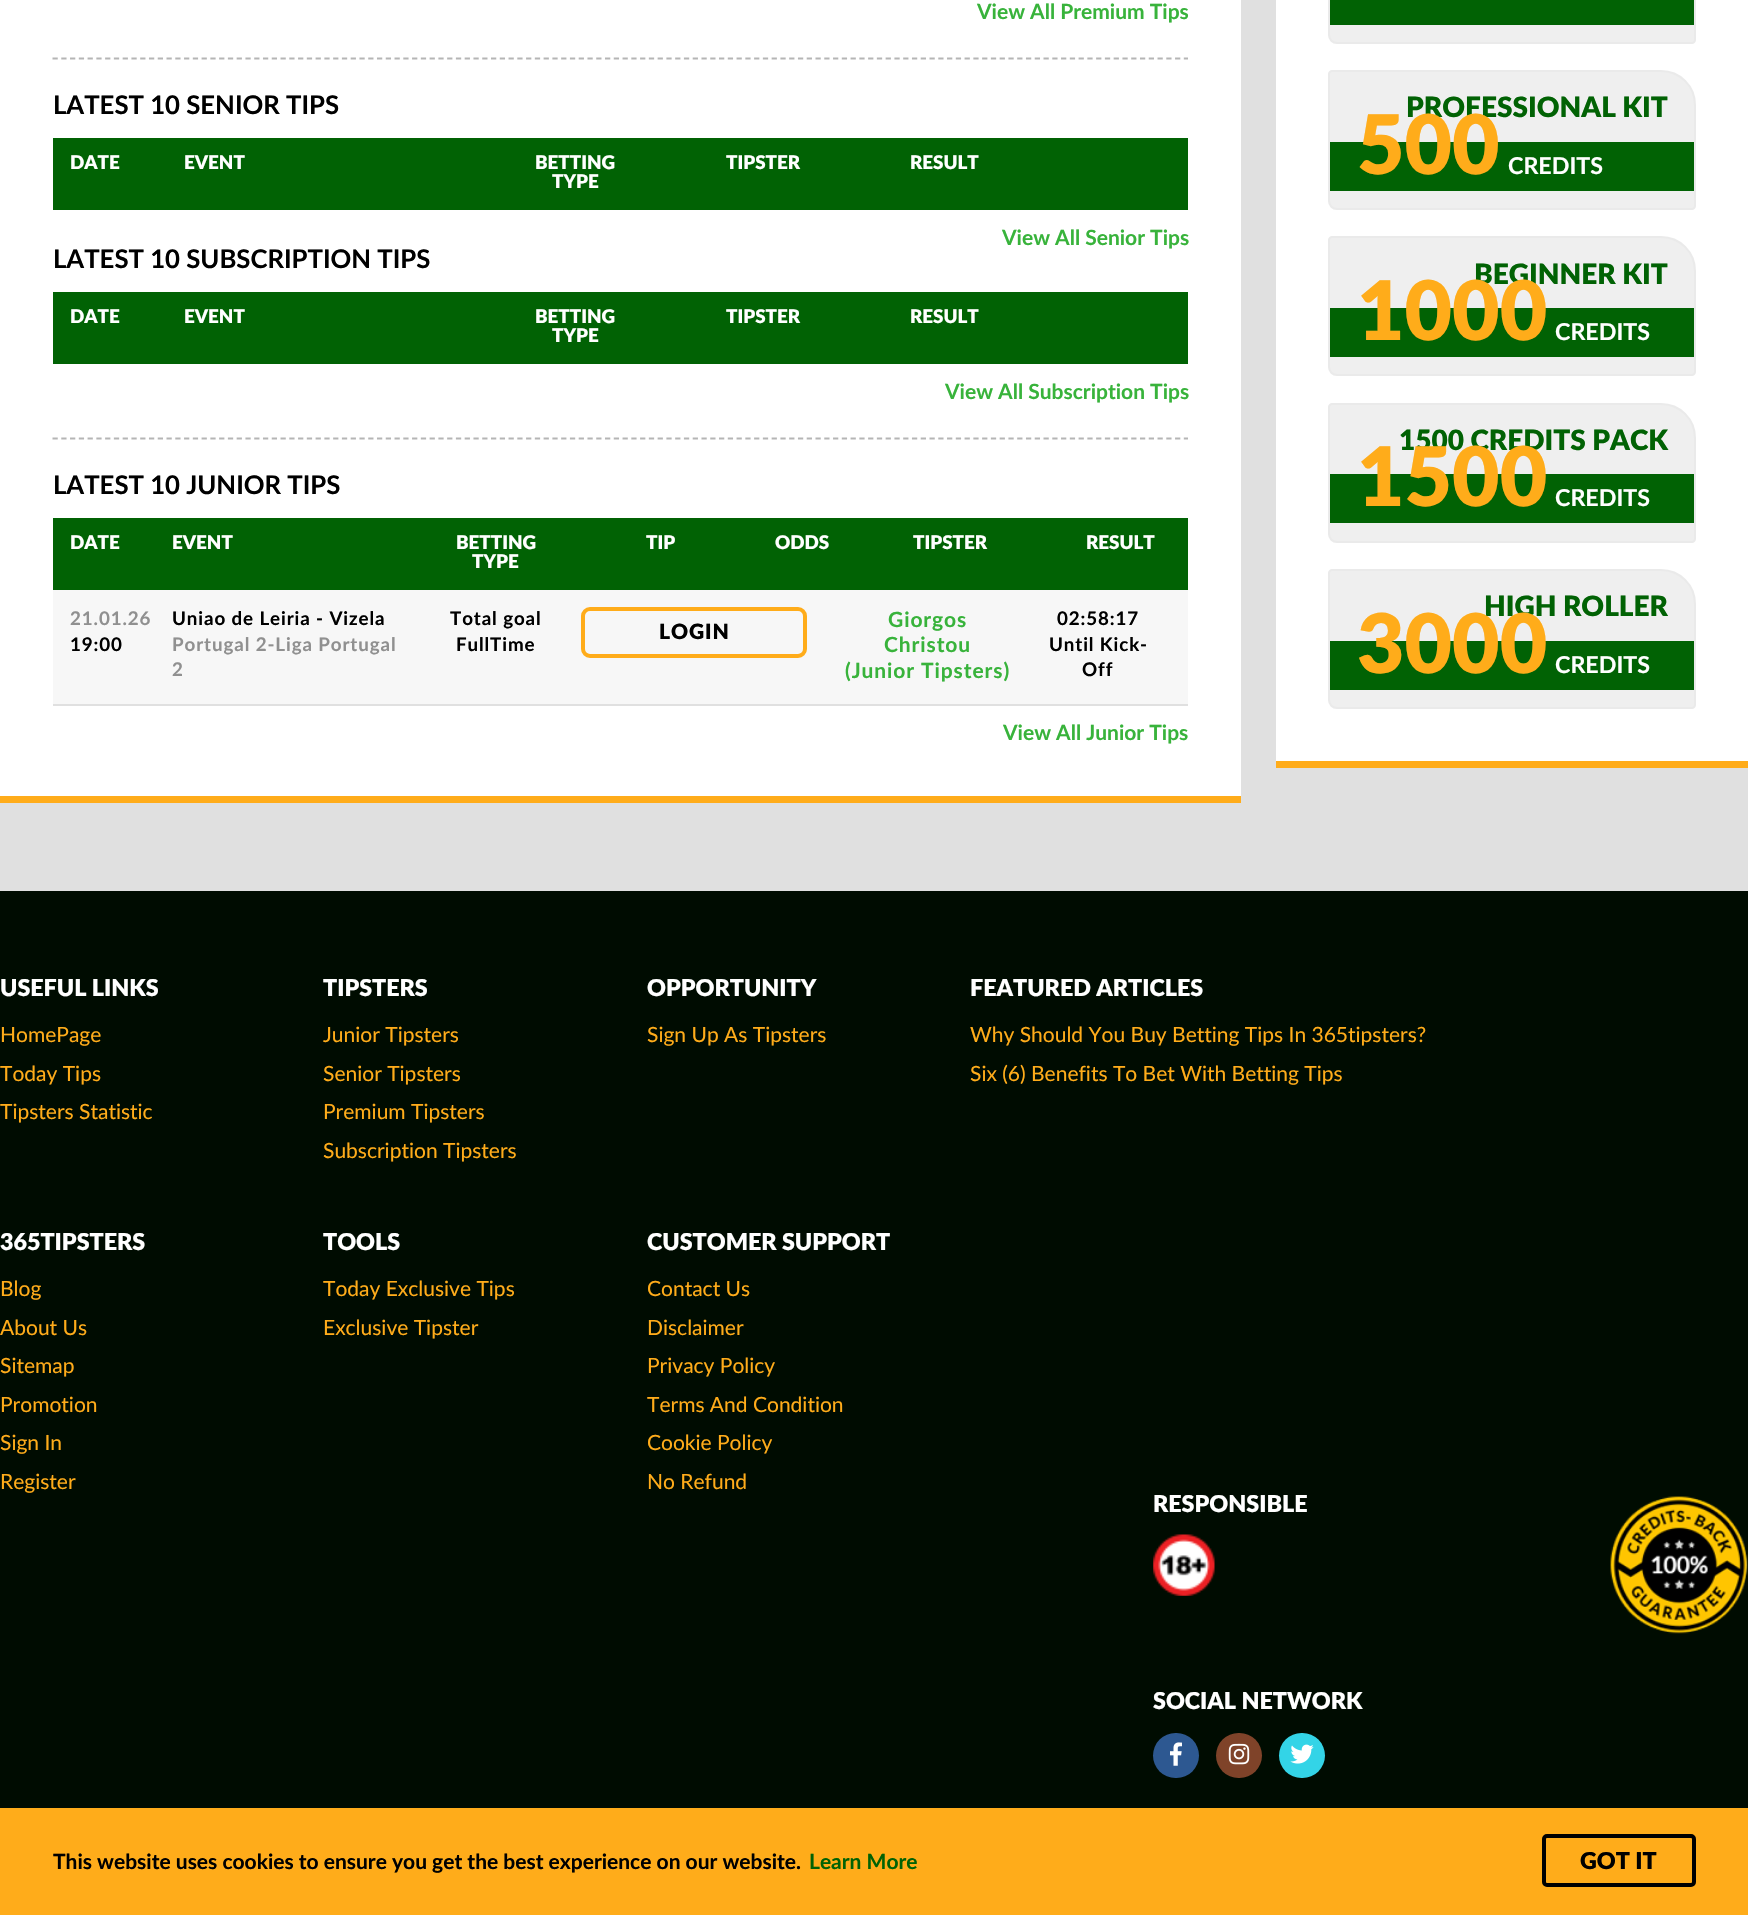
void draw(SkCanvas* c) {
SkPaint p;
p.setAntiAlias(true);
auto F=[&](const char* family, int weight, float size, bool italic = false){SkFontStyle style(weight, SkFontStyle::kNormal_Width,italic ? SkFontStyle::kItalic_Slant : SkFontStyle::kUpright_Slant);SkFont result(fontMgr->matchFamilyStyle(family, style), size);result.setSubpixel(true);return result;};
auto T=[&](const char* s, float x, float y, const SkFont& font){c->drawString(s, x, y, font, p);};
auto L=[&](const char* s, float x, float y, const SkFont& font, const SkPaint& ink, float letter, float word){std::vector<SkGlyphID> glyphs(font.countText(s, strlen(s), SkTextEncoding::kUTF8));std::vector<float> xs(glyphs.size());font.textToGlyphs(s, strlen(s), SkTextEncoding::kUTF8, glyphs);font.getXPos(glyphs, xs, x);float extra = 0;for (size_t i = 0; i < glyphs.size(); i++) {xs[i] += extra;extra += letter + word * (glyphs[i] == font.unicharToGlyph(' '));}c->drawTextBlob(SkTextBlob::MakeFromPosHGlyphs(glyphs, xs, y, font), 0, 0, ink);};
auto R=[&](float x, float y, float w, float h){c->drawRect(SkRect::MakeXYWH(x, y, w, h), p);};
auto Q=[&](float x, float y, float w, float h, float radius){c->drawRoundRect(SkRect::MakeXYWH(x, y, w, h), radius, radius, p);};
auto I=[&](const char* path, float x, float y, float w, float h){auto image = SkImages::DeferredFromEncodedData(SkData::MakeFromFileName(path));c->drawImageRect(image, SkRect::MakeXYWH(x, y, w, h), SkSamplingOptions());};
auto P=[&](const char* data, bool evenOdd = false){SkPath result = *SkParsePath::FromSVGString(data);if (evenOdd) result.setFillType(SkPathFillType::kEvenOdd);return result;};
c->clear(0xffe0e0e0);
p.setColor(0xffffffff);
R(0,0,1241,796);
p.setColor(0xffffac1a);
R(0,796,1241,7);
auto f1 = F("Lato",700,21);
p.setColor(0xff38b33b);
T("View All Premium Tips",977,19,f1);
p.setStroke(true);
p.setStrokeWidth(1.8);
p.setColor(0xffb5b5b5);
p.setPathEffect(SkDashPathEffect::Make({{5.25f,3.52f}}, 0));
c->drawPath(P("M52.5 58.5h1135.5"),p);
p.setPathEffect(nullptr);
auto f2 = F("Lato",700,25.7);
p.setStroke(false);
p.setColor(0xff000000);
T("LATEST 10 SENIOR TIPS",53,114,f2);
p.setColor(0xff016204);
R(53,138,1135,72);
auto f3 = F("Lato",900,18.75);
p.setColor(0xffffffff);
T("DATE",70,169,f3);
T("EVENT",184,169,f3);
T("BETTING",535,169,f3);
T("TYPE",552,188,f3);
T("TIPSTER",726,169,f3);
T("RESULT",910,169,f3);
p.setColor(0xff38b33b);
T("View All Senior Tips",1002,245,f1);
p.setColor(0xff000000);
T("LATEST 10 SUBSCRIPTION TIPS",53,268,f2);
p.setColor(0xff016204);
R(53,292,1135,72);
p.setColor(0xffffffff);
T("DATE",70,323,f3);
T("EVENT",184,323,f3);
T("BETTING",535,323,f3);
T("TYPE",552,342,f3);
T("TIPSTER",726,323,f3);
T("RESULT",910,323,f3);
p.setColor(0xff38b33b);
T("View All Subscription Tips",945,399,f1);
p.setStroke(true);
p.setColor(0xffb5b5b5);
p.setPathEffect(SkDashPathEffect::Make({{5.25f,3.52f}}, 0));
c->drawPath(P("M52.5 438.5h1135.5"),p);
p.setPathEffect(nullptr);
p.setStroke(false);
p.setColor(0xff000000);
T("LATEST 10 JUNIOR TIPS",53,494,f2);
p.setColor(0xff016204);
R(53,518,1135,72);
p.setColor(0xffffffff);
T("DATE",70,549,f3);
T("EVENT",172,549,f3);
T("BETTING",456,549,f3);
T("TYPE",472,568,f3);
T("TIP",646,549,f3);
T("ODDS",775,549,f3);
T("TIPSTER",913,549,f3);
T("RESULT",1086,549,f3);
p.setColor(0xfff7f7f7);
R(53,590,1135,114);
p.setColor(0xffe0e0e0);
R(53,704,1135,2);
auto f4 = F("Lato",700,18.75);
p.setColor(0xff909090);
L("21.01.26",70,625,f4,p,.9,0);
p.setColor(0xff000000);
L("19:00",70,651,f4,p,.9,0);
L("Uniao de Leiria - Vizela",172,625,f4,p,.9,0);
p.setColor(0xff909090);
L("Portugal 2-Liga Portugal",172,651,f4,p,.9,0);
L("2",172,676,f4,p,.9,0);
p.setColor(0xff000000);
L("Total goal",450,625,f4,p,.9,0);
L("FullTime",456,651,f4,p,.9,0);
p.setStroke(true);
p.setStrokeWidth(4);
p.setColor(0xffffac1a);
c->drawRoundRect(SkRect::MakeXYWH(583,609,222,47),7,7,p);
auto f5 = F("Lato",900,21);
p.setStroke(false);
p.setColor(0xff000000);
L("LOGIN",659,639,f5,p,.9,0);
p.setColor(0xff38b33b);
L("Giorgos",888,627,f1,p,.9,0);
L("Christou",884,652,f1,p,.9,0);
L("(Junior Tipsters)",845,678,f1,p,.9,0);
p.setColor(0xff000000);
L("02:58:17",1057,625,f4,p,.9,0);
L("Until Kick-",1049,651,f4,p,.9,0);
L("Off",1082,676,f4,p,.9,0);
p.setColor(0xff38b33b);
T("View All Junior Tips",1003,740,f1);
p.setColor(0xffffffff);
R(1276,0,472,761);
p.setColor(0xffffac1a);
R(1276,761,472,7);
p.setColor(0xffefefef);
c->drawPath(P("M1332-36h329c19 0 34 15 34 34v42c0 1.5-1.5 3-3 3h-355c-4.5 0-8-3.5-8-8v-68c0-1.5 1.5-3 3-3z"),p);
p.setStroke(true);
p.setStrokeWidth(2);
p.setColor(0xffeaeaea);
c->drawPath(P("M1332-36h329c19 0 34 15 34 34v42c0 1.5-1.5 3-3 3h-355c-4.5 0-8-3.5-8-8v-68c0-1.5 1.5-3 3-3z"),p);
p.setStroke(false);
p.setColor(0xff016204);
R(1330,0,364,25);
p.setColor(0xffefefef);
c->drawPath(P("M1332 71h329c19 0 34 15 34 34v101c0 1.5-1.5 3-3 3h-355c-4.5 0-8-3.5-8-8v-127c0-1.5 1.5-3 3-3z"),p);
p.setStroke(true);
p.setColor(0xffeaeaea);
c->drawPath(P("M1332 71h329c19 0 34 15 34 34v101c0 1.5-1.5 3-3 3h-355c-4.5 0-8-3.5-8-8v-127c0-1.5 1.5-3 3-3z"),p);
p.setStroke(false);
p.setColor(0xff016204);
R(1330,142,364,49);
auto f6 = F("Lato",900,28);
T("PROFESSIONAL KIT",1406,117,f6);
auto f7 = F("Lato",900,82);
p.setColor(0xffffac1a);
T("500",1357,174,f7);
auto f8 = F("Lato",700,23.25);
p.setColor(0xffffffff);
T("CREDITS",1508,174,f8);
p.setColor(0xffefefef);
c->drawPath(P("M1332 237h329c19 0 34 15 34 34v101c0 1.5-1.5 3-3 3h-355c-4.5 0-8-3.5-8-8v-127c0-1.5 1.5-3 3-3z"),p);
p.setStroke(true);
p.setColor(0xffeaeaea);
c->drawPath(P("M1332 237h329c19 0 34 15 34 34v101c0 1.5-1.5 3-3 3h-355c-4.5 0-8-3.5-8-8v-127c0-1.5 1.5-3 3-3z"),p);
p.setStroke(false);
p.setColor(0xff016204);
R(1330,308,364,49);
T("BEGINNER KIT",1474,284,f6);
p.setColor(0xffffac1a);
T("1000",1357,340,f7);
p.setColor(0xffffffff);
T("CREDITS",1555,340,f8);
p.setColor(0xffefefef);
c->drawPath(P("M1332 404h329c19 0 34 15 34 34v101c0 1.5-1.5 3-3 3h-355c-4.5 0-8-3.5-8-8v-127c0-1.5 1.5-3 3-3z"),p);
p.setStroke(true);
p.setColor(0xffeaeaea);
c->drawPath(P("M1332 404h329c19 0 34 15 34 34v101c0 1.5-1.5 3-3 3h-355c-4.5 0-8-3.5-8-8v-127c0-1.5 1.5-3 3-3z"),p);
p.setStroke(false);
p.setColor(0xff016204);
R(1330,474,364,49);
T("1500 CREDITS PACK",1399,450,f6);
p.setColor(0xffffac1a);
T("1500",1357,506,f7);
p.setColor(0xffffffff);
T("CREDITS",1555,506,f8);
p.setColor(0xffefefef);
c->drawPath(P("M1332 570h329c19 0 34 15 34 34v101c0 1.5-1.5 3-3 3h-355c-4.5 0-8-3.5-8-8v-127c0-1.5 1.5-3 3-3z"),p);
p.setStroke(true);
p.setColor(0xffeaeaea);
c->drawPath(P("M1332 570h329c19 0 34 15 34 34v101c0 1.5-1.5 3-3 3h-355c-4.5 0-8-3.5-8-8v-127c0-1.5 1.5-3 3-3z"),p);
p.setStroke(false);
p.setColor(0xff016204);
R(1330,641,364,49);
T("HIGH ROLLER",1484,616,f6);
p.setColor(0xffffac1a);
T("3000",1357,673,f7);
p.setColor(0xffffffff);
T("CREDITS",1555,673,f8);
p.setColor(0xff000c01);
R(0,891,1748,917);
auto f9 = F("Lato",900,23.25);
p.setColor(0xffffffff);
T("USEFUL LINKS",0,996,f9);
auto f10 = F("Lato",400,21);
p.setColor(0xffffac1a);
T("HomePage",0,1042,f10);
T("Today Tips",0,1081,f10);
T("Tipsters Statistic",0,1119,f10);
p.setColor(0xffffffff);
T("TIPSTERS",323,996,f9);
p.setColor(0xffffac1a);
T("Junior Tipsters",323,1042,f10);
T("Senior Tipsters",323,1081,f10);
T("Premium Tipsters",323,1119,f10);
T("Subscription Tipsters",323,1158,f10);
p.setColor(0xffffffff);
T("OPPORTUNITY",647,996,f9);
p.setColor(0xffffac1a);
T("Sign Up As Tipsters",647,1042,f10);
p.setColor(0xffffffff);
T("FEATURED ARTICLES",970,996,f9);
p.setColor(0xffffac1a);
T("Why Should You Buy Betting Tips In 365tipsters?",970,1042,f10);
T("Six (6) Benefits To Bet With Betting Tips",970,1081,f10);
p.setColor(0xffffffff);
T("365TIPSTERS",0,1250,f9);
p.setColor(0xffffac1a);
T("Blog",0,1296,f10);
T("About Us",0,1335,f10);
T("Sitemap",0,1373,f10);
T("Promotion",0,1412,f10);
T("Sign In",0,1450,f10);
T("Register",0,1489,f10);
p.setColor(0xffffffff);
T("TOOLS",323,1250,f9);
p.setColor(0xffffac1a);
T("Today Exclusive Tips",323,1296,f10);
T("Exclusive Tipster",323,1335,f10);
p.setColor(0xffffffff);
T("CUSTOMER SUPPORT",647,1250,f9);
p.setColor(0xffffac1a);
T("Contact Us",647,1296,f10);
T("Disclaimer",647,1335,f10);
T("Privacy Policy",647,1373,f10);
T("Terms And Condition",647,1412,f10);
T("Cookie Policy",647,1450,f10);
T("No Refund",647,1489,f10);
p.setColor(0xffffffff);
T("RESPONSIBLE",1153,1512,f9);
I("1.png",1153,1534,62,62);
I("2.png",1610,1496,138,138);
T("SOCIAL NETWORK",1153,1709,f9);
p.setColor(0xff2d5891);
Q(1153,1733,46,45,22.5);
I("3.png",1170,1742,12,24);
p.setColor(0xff7f4329);
Q(1216,1733,46,45,22.5);
I("4.png",1228,1743,22,22);
p.setColor(0xff33d4e7);
Q(1279,1733,46,45,22.5);
I("5.png",1290,1744,24,20);
p.setColor(0xffffac1a);
R(0,1808,1748,107);
p.setColor(0xff000000);
T("This website uses cookies to ensure you get the best experience on our website.",53,1869,f1);
p.setColor(0xff016204);
T("Learn More",809,1869,f1);
p.setStroke(true);
p.setStrokeWidth(4);
p.setColor(0xff000000);
c->drawRoundRect(SkRect::MakeXYWH(1544,1836,150,49),3,3,p);
p.setStroke(false);
T("GOT IT",1580,1869,f9);
}
